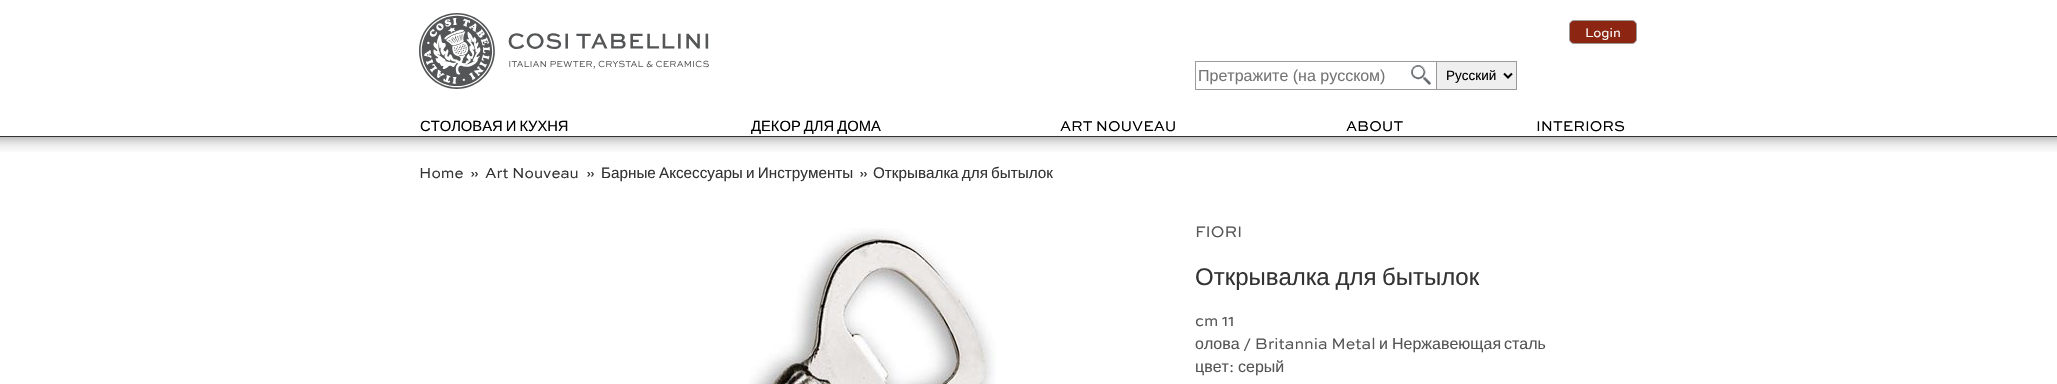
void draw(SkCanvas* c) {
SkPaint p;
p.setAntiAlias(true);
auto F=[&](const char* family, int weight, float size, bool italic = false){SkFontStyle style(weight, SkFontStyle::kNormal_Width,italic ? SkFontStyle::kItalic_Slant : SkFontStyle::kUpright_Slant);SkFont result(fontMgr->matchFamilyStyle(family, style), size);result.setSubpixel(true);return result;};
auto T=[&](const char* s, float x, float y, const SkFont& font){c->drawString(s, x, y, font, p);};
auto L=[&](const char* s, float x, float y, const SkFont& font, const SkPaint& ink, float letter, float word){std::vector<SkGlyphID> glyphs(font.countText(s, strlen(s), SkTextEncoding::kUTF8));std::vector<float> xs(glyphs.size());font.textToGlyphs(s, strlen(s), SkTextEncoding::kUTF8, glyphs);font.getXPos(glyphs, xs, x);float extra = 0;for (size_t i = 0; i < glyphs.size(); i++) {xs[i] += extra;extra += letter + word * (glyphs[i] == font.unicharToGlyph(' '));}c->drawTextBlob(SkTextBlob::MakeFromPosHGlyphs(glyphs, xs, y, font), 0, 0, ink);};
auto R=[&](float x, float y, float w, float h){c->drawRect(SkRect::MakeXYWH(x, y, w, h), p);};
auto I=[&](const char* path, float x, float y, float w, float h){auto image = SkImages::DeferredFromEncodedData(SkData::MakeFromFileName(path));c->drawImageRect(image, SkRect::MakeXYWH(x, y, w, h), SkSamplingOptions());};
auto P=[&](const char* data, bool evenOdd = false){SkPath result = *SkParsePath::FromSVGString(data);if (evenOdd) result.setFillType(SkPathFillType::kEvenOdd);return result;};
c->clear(0xffffffff);
I("1.png",419,13,290,76);
p.setColor(0xff8c2512);
c->drawRoundRect(SkRect::MakeXYWH(1569.5,20.5,67,23),4.5,4.5,p);
p.setStroke(true);
p.setStrokeWidth(1);
p.setColor(0xff9a9a9a);
c->drawRoundRect(SkRect::MakeXYWH(1569.5,20.5,67,23),4.5,4.5,p);
auto f1 = F("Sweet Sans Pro",400,13);
p.setStroke(false);
p.setColor(0xffffffff);
T("Login",1585,37,f1);
p.setColor(0xff9a9a9a);
R(1195,61,241,1);
R(1195,89,241,1);
R(1195,61,1,29);
auto f2 = F("Liberation Sans",400,16);
p.setColor(0xff757575);
T("Претражите (на русском)",1198,81,f2);
I("2.png",1411,65,20,20);
p.setColor(0xffefefef);
c->drawRect(SkRect::MakeXYWH(1436.5,61.5,80,28),p);
p.setStroke(true);
p.setColor(0xff9a9a9a);
c->drawRect(SkRect::MakeXYWH(1436.5,61.5,80,28),p);
p.setStrokeWidth(2);
p.setColor(0xff000000);
c->drawPath(P("M1504 73.5l4 4l4-4"),p);
auto f3 = F("Liberation Sans",400,13.5);
p.setStroke(false);
T("Pусский",1446,80,f3);
auto f4 = F("Liberation Sans",400,14.75);
L("СТОЛОВАЯ И КУХНЯ",420,131,f4,p,0,-1);
L("ДЕКОР ДЛЯ ДОМА",751,131,f4,p,0,-1);
auto f5 = F("Sweet Sans Pro",400,14.75);
T("ART NOUVEAU",1060,131,f5);
T("ABOUT",1346,131,f5);
T("INTERIORS",1536,131,f5);
I("3.png",0,137,2057,15);
p.setColor(0xff333333);
R(0,136,2057,1);
auto f6 = F("Sweet Sans Pro",400,15.25);
T("Home",419,178,f6);
T("»",470,178,f6);
T("Art Nouveau",485,178,f6);
T("»",586,178,f6);
auto f7 = F("Liberation Sans",400,15.25);
L("Барные Аксессуары и Инструменты",601,178,f7,p,0,-1);
T("»",859,178,f6);
L("Открывалка для бытылок",873,178,f7,p,0,-1);
I("4.png",749,228,247,156);
auto f8 = F("Sweet Sans Pro",400,16);
p.setColor(0xff555555);
T("FIORI",1195,237,f8);
auto f9 = F("Liberation Sans",400,24);
p.setColor(0xff333333);
L("Открывалка для бытылок",1195,285,f9,p,0,-1);
p.setColor(0xff555555);
T("cm 11",1195,326,f8);
T("олова",1195,349,f2);
T("/ Britannia Metal",1243,349,f8);
T("и",1379,349,f2);
T("Нержавеющая",1392,349,f2);
T("сталь",1504,349,f2);
T("цвет",1195,372,f2);
T(":",1229,372,f8);
T("серый",1238,372,f2);
}
